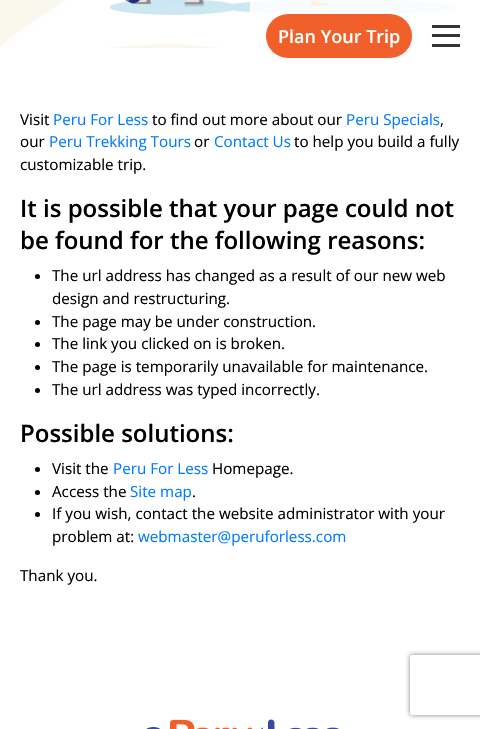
void draw(SkCanvas* c) {
SkPaint p;
p.setAntiAlias(true);
auto F=[&](const char* family, int weight, float size, bool italic = false){SkFontStyle style(weight, SkFontStyle::kNormal_Width,italic ? SkFontStyle::kItalic_Slant : SkFontStyle::kUpright_Slant);SkFont result(fontMgr->matchFamilyStyle(family, style), size);result.setSubpixel(true);return result;};
auto T=[&](const char* s, float x, float y, const SkFont& font){c->drawString(s, x, y, font, p);};
auto R=[&](float x, float y, float w, float h){c->drawRect(SkRect::MakeXYWH(x, y, w, h), p);};
auto Q=[&](float x, float y, float w, float h, float radius){c->drawRoundRect(SkRect::MakeXYWH(x, y, w, h), radius, radius, p);};
auto I=[&](const char* path, float x, float y, float w, float h){auto image = SkImages::DeferredFromEncodedData(SkData::MakeFromFileName(path));c->drawImageRect(image, SkRect::MakeXYWH(x, y, w, h), SkSamplingOptions());};
auto P=[&](const char* data, bool evenOdd = false){SkPath result = *SkParsePath::FromSVGString(data);if (evenOdd) result.setFillType(SkPathFillType::kEvenOdd);return result;};
c->clear(0xffffffff);
I("1.png",0,0,480,48);
p.setColor(0xd9ffffff);
R(250,0,206,16);
p.setColor(0xfff15f2a);
Q(266,14,146,44,22);
auto f1 = F("Open Sans",600,18);
p.setColor(0xffffffff);
T("Plan Your Trip",278,43,f1);
p.setColor(0xff333333);
R(432,25,28,3);
R(432,34,28,3);
R(432,44,28,3);
auto f2 = F("Open Sans",400,15.2);
p.setColor(0xff000000);
T("Visit",20,125,f2);
p.setColor(0xff007bff);
T("Peru For Less",53,125,f2);
p.setColor(0xff000000);
T("to find out more about our",152,125,f2);
p.setColor(0xff007bff);
T("Peru Specials",346,125,f2);
p.setColor(0xff000000);
T(",",440,125,f2);
T("our",20,147,f2);
p.setColor(0xff007bff);
T("Peru Trekking Tours",49,147,f2);
p.setColor(0xff000000);
T("or",194,147,f2);
p.setColor(0xff007bff);
T("Contact Us",214,147,f2);
p.setColor(0xff000000);
T("to help you build a fully",294,147,f2);
T("customizable trip.",20,170,f2);
auto f3 = F("Open Sans",600,24);
T("It is possible that your page could not",20,217,f3);
T("be found for the following reasons:",20,249,f3);
c->drawCircle(37.5,276.5,2.5,p);
T("The url address has changed as a result of our new web",52,281,f2);
T("design and restructuring.",52,304,f2);
c->drawCircle(37.5,322.5,2.5,p);
T("The page may be under construction.",52,327,f2);
c->drawCircle(37.5,344.5,2.5,p);
T("The link you clicked on is broken.",52,349,f2);
c->drawCircle(37.5,367.5,2.5,p);
T("The page is temporarily unavailable for maintenance.",52,372,f2);
c->drawCircle(37.5,390.5,2.5,p);
T("The url address was typed incorrectly.",52,395,f2);
T("Possible solutions:",20,442,f3);
c->drawCircle(37.5,469.5,2.5,p);
T("Visit the",52,474,f2);
p.setColor(0xff007bff);
T("Peru For Less",113,474,f2);
p.setColor(0xff000000);
T("Homepage.",212,474,f2);
c->drawCircle(37.5,492.5,2.5,p);
T("Access the",52,497,f2);
p.setColor(0xff007bff);
T("Site map",130,497,f2);
p.setColor(0xff000000);
T(".",192,497,f2);
c->drawCircle(37.5,514.5,2.5,p);
T("If you wish, contact the website administrator with your",52,519,f2);
T("problem at:",52,542,f2);
p.setColor(0xff007bff);
T("webmaster@peruforless.com",138,542,f2);
p.setColor(0xff000000);
T("Thank you.",20,581,f2);
I("2.png",146,719,193,10);
c->save();
c->clipPath(P("M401 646h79v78h-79zm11 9h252c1 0 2 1 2 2v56c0 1-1 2-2 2h-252c-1 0-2-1-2-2v-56c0-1 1-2 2-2z",true),true);
p.setColor(0xff808080);
p.setMaskFilter(SkMaskFilter::MakeBlur(kNormal_SkBlurStyle, 2.5));
c->drawRoundRect(SkRect::MakeXYWH(410,655,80,60),2,2,p);
p.setMaskFilter(nullptr);
c->restore();
}
